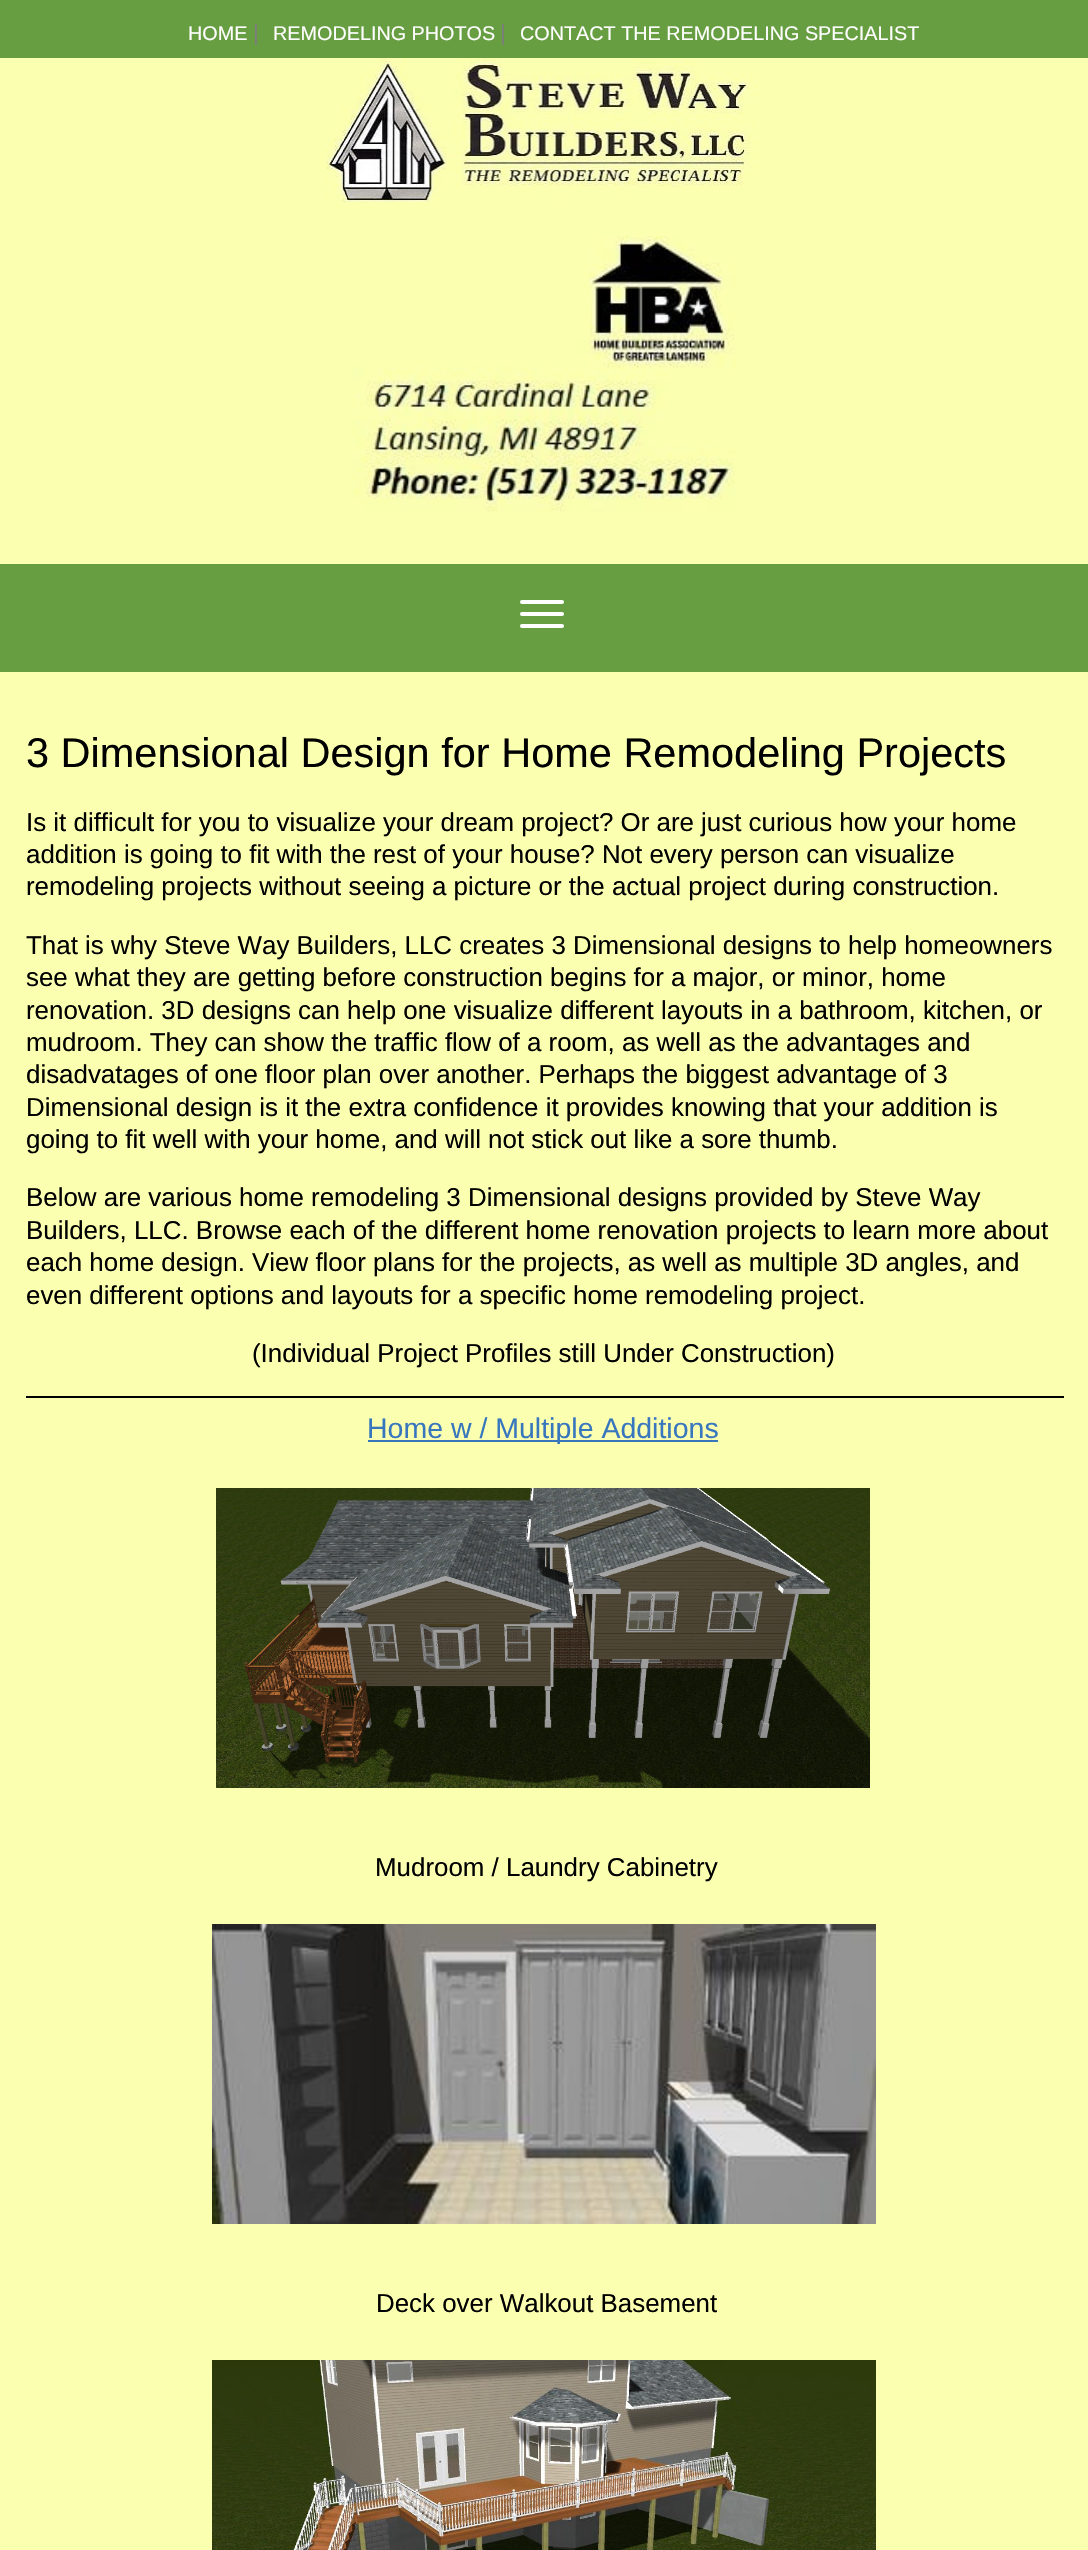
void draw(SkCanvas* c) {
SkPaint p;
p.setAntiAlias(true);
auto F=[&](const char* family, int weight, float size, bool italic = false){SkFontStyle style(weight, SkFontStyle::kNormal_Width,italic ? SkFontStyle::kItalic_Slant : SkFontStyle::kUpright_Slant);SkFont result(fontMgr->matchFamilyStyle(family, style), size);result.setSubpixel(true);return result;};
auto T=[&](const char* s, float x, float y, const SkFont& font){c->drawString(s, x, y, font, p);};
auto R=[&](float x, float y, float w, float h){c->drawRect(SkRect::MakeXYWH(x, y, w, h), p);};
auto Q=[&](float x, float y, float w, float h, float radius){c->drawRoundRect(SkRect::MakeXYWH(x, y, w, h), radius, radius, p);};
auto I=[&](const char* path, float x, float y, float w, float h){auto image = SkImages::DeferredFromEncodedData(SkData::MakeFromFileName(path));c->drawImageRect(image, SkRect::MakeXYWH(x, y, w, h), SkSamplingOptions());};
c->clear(0xfffbffb0);
p.setColor(0xff679e42);
R(0,0,1088,58);
auto f1 = F("Liberation Sans",400,19.8);
p.setColor(0xffffffff);
T("HOME",188,40,f1);
auto f2 = F("Liberation Sans",400,22);
p.setColor(0xff7c7c7c);
T("|",253,40,f2);
p.setColor(0xffffffff);
T("REMODELING PHOTOS",273,40,f1);
p.setColor(0xff7c7c7c);
T("|",500,40,f2);
p.setColor(0xffffffff);
T("CONTACT THE REMODELING SPECIALIST",520,40,f1);
I("1.png",326,58,433,145);
I("2.png",353,236,383,276);
p.setColor(0xff679e42);
R(0,564,1088,108);
p.setColor(0xffffffff);
Q(520,612,44,4,2);
Q(520,600,44,4,2);
Q(520,624,44,4,2);
auto f3 = F("Liberation Sans",400,41.5);
p.setColor(0xff000000);
T("3 Dimensional Design for Home Remodeling Projects",26,767,f3);
auto f4 = F("Liberation Sans",400,25.9);
T("Is it difficult for you to visualize your dream project? Or are just curious how your home",26,831,f4);
T("addition is going to fit with the rest of your house? Not every person can visualize",26,863,f4);
T("remodeling projects without seeing a picture or the actual project during construction.",26,895,f4);
T("That is why Steve Way Builders, LLC creates 3 Dimensional designs to help homeowners",26,954,f4);
T("see what they are getting before construction begins for a major, or minor, home",26,986,f4);
T("renovation. 3D designs can help one visualize different layouts in a bathroom, kitchen, or",26,1019,f4);
T("mudroom. They can show the traffic flow of a room, as well as the advantages and",26,1051,f4);
T("disadvatages of one floor plan over another. Perhaps the biggest advantage of 3",26,1083,f4);
T("Dimensional design is it the extra confidence it provides knowing that your addition is",26,1116,f4);
T("going to fit well with your home, and will not stick out like a sore thumb.",26,1148,f4);
T("Below are various home remodeling 3 Dimensional designs provided by Steve Way",26,1206,f4);
T("Builders, LLC. Browse each of the different home renovation projects to learn more about",26,1239,f4);
T("each home design. View floor plans for the projects, as well as multiple 3D angles, and",26,1271,f4);
T("even different options and layouts for a specific home remodeling project.",26,1304,f4);
T("(Individual Project Profiles still Under Construction)",252,1362,f4);
R(26,1396,1038,2);
p.setColor(0xff3876be);
R(368,1440,350,2);
auto f5 = F("Liberation Sans",400,28.5);
T("Home w / Multiple Additions",367,1438,f5);
I("3.png",216,1488,654,300);
p.setColor(0xff000000);
T("Mudroom / Laundry Cabinetry",375,1876,f4);
I("4.png",212,1924,664,300);
T("Deck over Walkout Basement",376,2312,f4);
I("5.png",212,2360,664,190);
}
